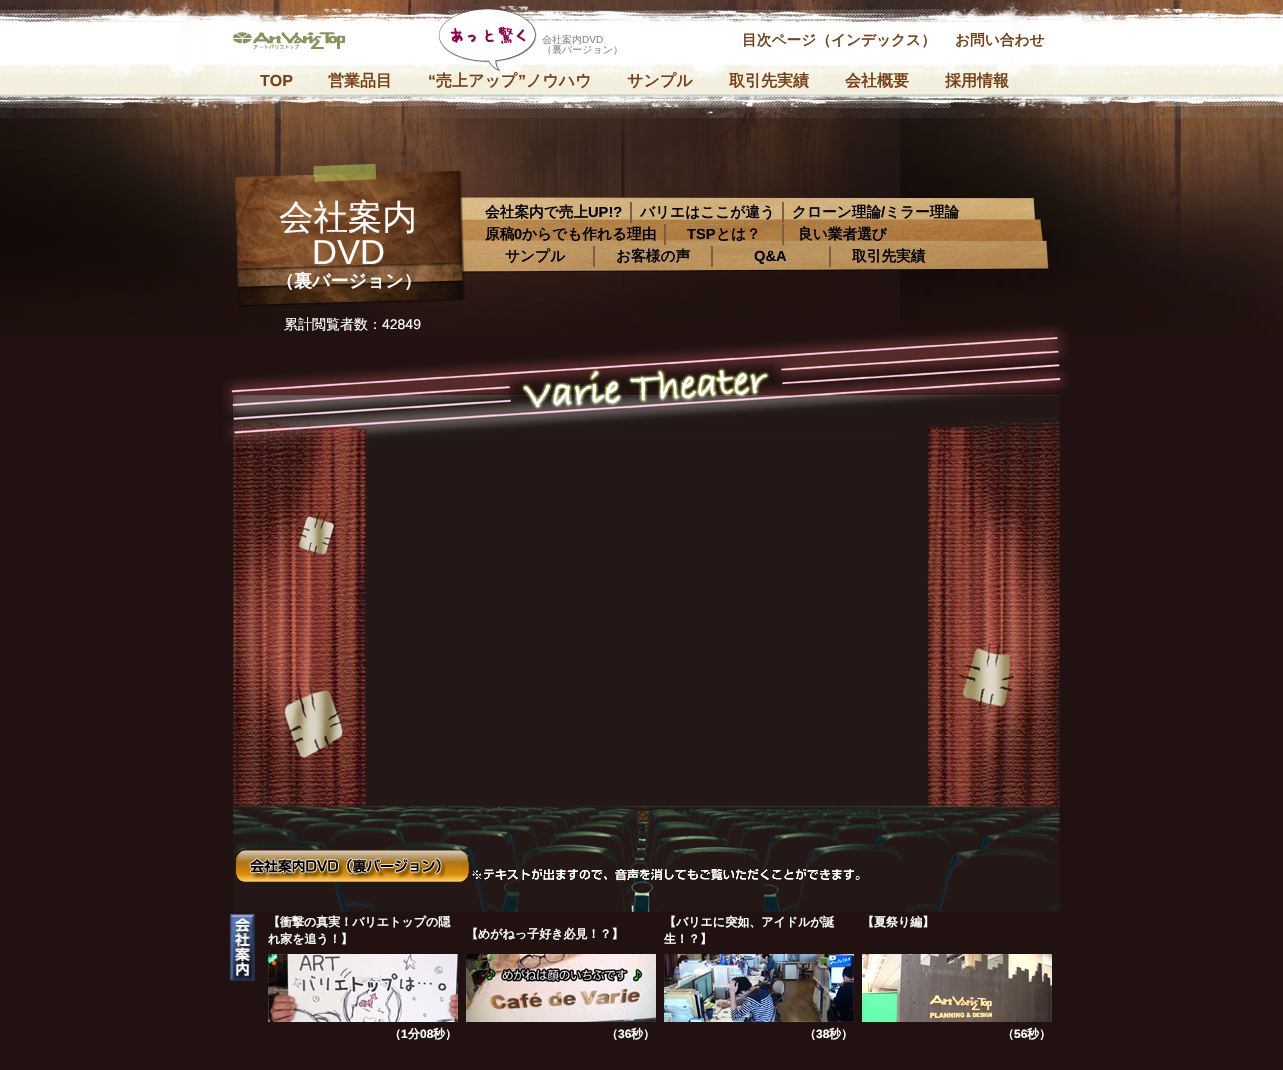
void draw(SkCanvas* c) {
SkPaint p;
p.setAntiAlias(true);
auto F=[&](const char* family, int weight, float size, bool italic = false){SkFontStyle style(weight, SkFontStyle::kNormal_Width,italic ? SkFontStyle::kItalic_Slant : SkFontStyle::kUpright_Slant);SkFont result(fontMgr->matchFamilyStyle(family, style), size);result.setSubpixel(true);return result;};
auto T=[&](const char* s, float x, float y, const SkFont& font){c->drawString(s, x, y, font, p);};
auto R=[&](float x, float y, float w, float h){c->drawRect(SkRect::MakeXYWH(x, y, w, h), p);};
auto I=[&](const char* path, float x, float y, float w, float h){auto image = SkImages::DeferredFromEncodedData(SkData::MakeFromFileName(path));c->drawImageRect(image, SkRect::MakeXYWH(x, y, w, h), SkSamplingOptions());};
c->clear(0xff211111);
I("1.png",0,0,1283,336);
I("2.png",0,0,1283,118);
I("3.png",233,9,304,63);
auto f1 = F("WenQuanYi Zen Hei",500,10);
p.setColor(0xff888888);
T("会社案内",542,43,f1);
auto f2 = F("Liberation Sans",400,10);
T("DVD",582,43,f2);
T("（裏バージョン）",542,53,f1);
auto f3 = F("WenQuanYi Zen Hei",700,14.7);
p.setColor(0xff784118);
T("目次ページ（インデックス）",742,45,f3);
T("お問い合わせ",955,45,f3);
auto f4 = F("Liberation Sans",700,16);
T("TOP",260,86,f4);
auto f5 = F("WenQuanYi Zen Hei",700,16);
T("営業品目",328,86,f5);
T("“",428,86,f4);
T("売上アップ",436,86,f5);
T("”",518,86,f4);
T("ノウハウ",526,86,f5);
T("サンプル",627,86,f5);
T("取引先実績",729,86,f5);
T("会社概要",845,86,f5);
T("採用情報",945,86,f5);
I("4.png",234,163,815,144);
auto f6 = F("WenQuanYi Zen Hei",500,34.5);
p.setColor(0xffffffff);
T("会社案内",279,229,f6);
auto f7 = F("Liberation Sans",400,34.5);
T("DVD",312,264,f7);
auto f8 = F("WenQuanYi Zen Hei",700,18);
T("（裏バージョン）",276,287,f8);
p.setColor(0xff7e5c45);
R(630,202,2,21);
p.setColor(0xff000000);
T("会社案内で売上",485,217,f3);
auto f9 = F("Liberation Sans",700,14.7);
T("UP!?",588,217,f9);
p.setColor(0xff7e5c45);
R(782,202,2,21);
p.setColor(0xff000000);
T("バリエはここが違う",640,217,f3);
T("クローン理論",792,217,f3);
T("/",881,217,f9);
T("ミラー理論",885,217,f3);
p.setColor(0xff7e5c45);
R(664,224,2,21);
p.setColor(0xff000000);
T("原稿",485,239,f3);
T("0",514,239,f9);
T("からでも作れる理由",522,239,f3);
p.setColor(0xff7e5c45);
R(782,224,2,21);
p.setColor(0xff000000);
T("TSP",687,239,f9);
T("とは？",716,239,f3);
T("良い業者選び",798,239,f3);
p.setColor(0xff7e5c45);
R(593,246,2,21);
p.setColor(0xff000000);
T("サンプル",505,261,f3);
p.setColor(0xff7e5c45);
R(711,246,2,21);
p.setColor(0xff000000);
T("お客様の声",616,261,f3);
p.setColor(0xff7e5c45);
R(829,246,2,21);
p.setColor(0xff000000);
T("Q&A",754,261,f9);
T("取引先実績",852,261,f3);
I("5.png",221,325,849,587);
auto f10 = F("WenQuanYi Zen Hei",500,14);
p.setColor(0xffffffff);
T("累計閲覧者数：",284,329,f10);
auto f11 = F("Liberation Sans",400,14);
T("42849",382,329,f11);
I("6.png",236,850,624,32);
I("7.png",230,914,25,67);
auto f12 = F("WenQuanYi Zen Hei",700,12);
T("【衝撃の真実！バリエトップの隠",268,926,f12);
T("れ家を追う！】",268,943,f12);
I("8.png",268,954,190,68);
T("（",389,1038,f12);
auto f13 = F("Liberation Sans",700,12);
T("1",401,1038,f13);
T("分",408,1038,f12);
T("08",420,1038,f13);
T("秒）",433,1038,f12);
T("【めがねっ子好き必見！？】",466,938,f12);
I("9.png",466,954,190,68);
T("（",606,1038,f12);
T("36",618,1038,f13);
T("秒）",631,1038,f12);
T("【バリエに突如、アイドルが誕",664,926,f12);
T("生！？】",664,943,f12);
I("10.png",664,954,190,68);
T("（",804,1038,f12);
T("38",816,1038,f13);
T("秒）",829,1038,f12);
T("【夏祭り編】",862,926,f12);
I("11.png",862,954,190,68);
T("（",1002,1038,f12);
T("56",1014,1038,f13);
T("秒）",1027,1038,f12);
}
